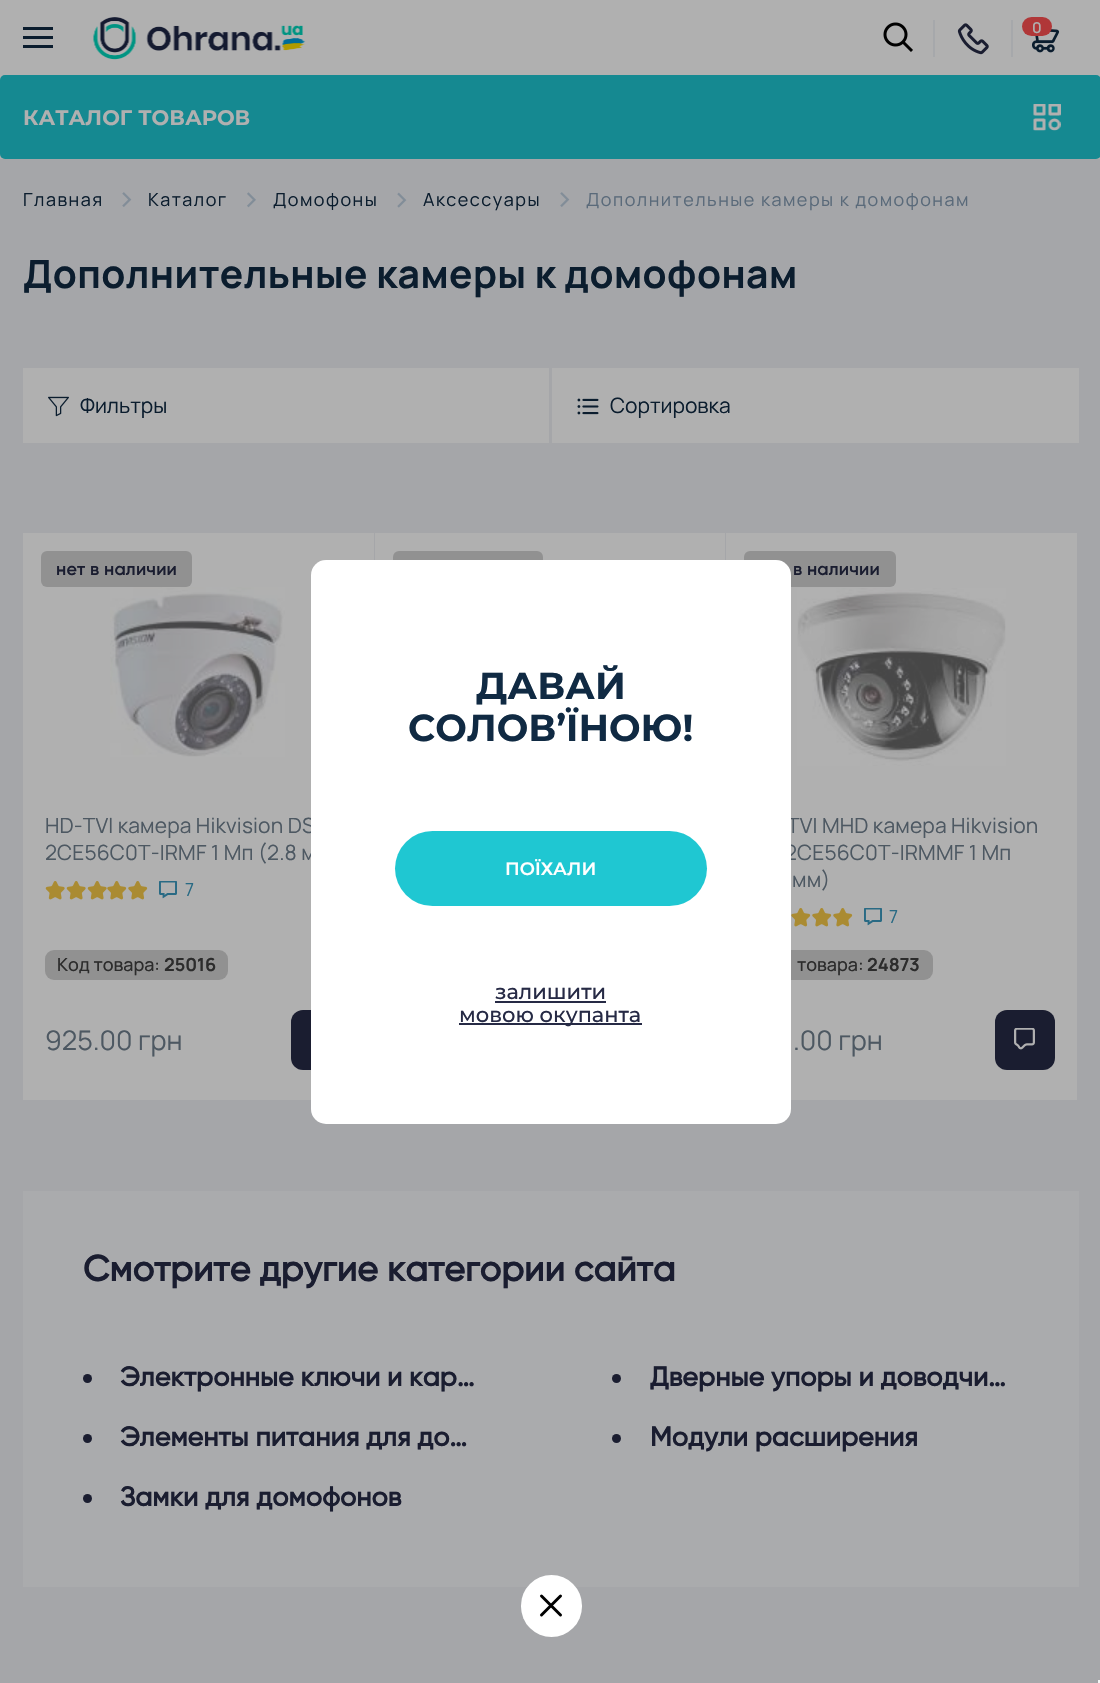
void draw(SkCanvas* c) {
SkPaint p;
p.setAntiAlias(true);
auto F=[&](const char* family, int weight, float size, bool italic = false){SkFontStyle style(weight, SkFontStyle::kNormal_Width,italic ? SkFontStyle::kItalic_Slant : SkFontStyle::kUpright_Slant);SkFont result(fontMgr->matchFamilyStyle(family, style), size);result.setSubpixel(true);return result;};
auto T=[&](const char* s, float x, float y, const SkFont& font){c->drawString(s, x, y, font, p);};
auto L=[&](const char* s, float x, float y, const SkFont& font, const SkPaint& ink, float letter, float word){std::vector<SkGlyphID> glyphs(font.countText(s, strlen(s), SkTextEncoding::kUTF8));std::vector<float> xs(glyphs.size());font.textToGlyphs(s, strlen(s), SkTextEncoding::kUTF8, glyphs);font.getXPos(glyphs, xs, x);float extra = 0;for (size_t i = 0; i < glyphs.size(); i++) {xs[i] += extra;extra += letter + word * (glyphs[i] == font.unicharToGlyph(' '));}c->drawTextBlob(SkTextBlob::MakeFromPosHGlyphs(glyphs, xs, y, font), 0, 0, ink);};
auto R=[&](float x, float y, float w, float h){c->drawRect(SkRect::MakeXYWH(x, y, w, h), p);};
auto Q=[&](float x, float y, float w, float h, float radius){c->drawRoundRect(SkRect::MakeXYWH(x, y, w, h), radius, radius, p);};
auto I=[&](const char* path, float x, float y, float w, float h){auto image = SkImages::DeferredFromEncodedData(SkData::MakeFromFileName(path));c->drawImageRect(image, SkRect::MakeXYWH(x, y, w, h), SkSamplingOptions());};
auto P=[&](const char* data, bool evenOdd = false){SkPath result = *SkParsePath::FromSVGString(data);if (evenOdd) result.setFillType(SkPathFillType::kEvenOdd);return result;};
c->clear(0xffa5a6a9);
p.setColor(0xffb0b0b0);
R(0,0,1100,159);
p.setColor(0xff0b1d2e);
R(23,27,30,3);
R(23,36,30,3);
R(23,45,30,3);
I("1.png",93,17,213,43);
I("2.png",883,22,30,30);
p.setColor(0xffa6a8ab);
R(1011,20,2,37);
R(933,20,2,37);
I("3.png",957,23,32,32);
I("4.png",1032,29,28,24);
p.setColor(0xffb03738);
Q(1022,17,30,19,9.5);
auto f1 = F("Manrope",600,15);
p.setColor(0xffb0b0b0);
T("0",1032,33,f1);
p.setColor(0xff158991);
Q(0,75,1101,84,5);
auto f2 = F("Montserrat",700,21);
p.setColor(0xffb0b0b0);
T("КАТАЛОГ ТОВАРОВ",23,125,f2);
I("5.png",1033,104,28,27);
auto f3 = F("Manrope",400,18);
p.setColor(0xff0b1d2e);
L("Главная",23,206,f3,p,1.5,0);
I("6.png",122,192,10,15);
L("Каталог",148,206,f3,p,1.5,0);
I("7.png",247,192,9,16);
L("Домофоны",273,206,f3,p,1.5,0);
I("8.png",397,192,10,16);
L("Аксессуары",423,206,f3,p,1.5,0);
I("9.png",560,192,10,15);
p.setColor(0xff5a6a7a);
L("Дополнительные камеры к домофонам",586,206,f3,p,1.5,0);
auto f4 = F("Manrope",700,39);
p.setColor(0xff0b1d2e);
L("Дополнительные камеры к домофонам",23,288,f4,p,.4,0);
p.setColor(0xffb0b0b0);
R(23,368,526,75);
I("10.png",48,396,21,21);
auto f5 = F("Manrope",400,21);
p.setColor(0xff0b1d2e);
T("Фильтры",80,413,f5);
p.setColor(0xffb0b0b0);
R(552,368,527,75);
I("11.png",577,398,22,17);
p.setColor(0xff0b1d2e);
T("Сортировка",610,413,f5);
p.setColor(0xffb0b0b0);
R(23,533,351,567);
p.setColor(0xff919191);
Q(41,551,151,36,6);
auto f6 = F("Gilroy",600,18);
p.setColor(0xff1a1d30);
L("нет в наличии",56,575,f6,p,.15,0);
I("12.png",110,587,175,170);
p.setColor(0xff4d5862);
L("HD-TVI камера Hikvision DS",45,833,f5,p,.15,0);
L("2CE56C0T-IRMF 1 Мп (2.8 м",45,860,f5,p,.15,0);
I("13.png",45,881,20,19);
I("13.png",66,881,20,19);
I("13.png",87,881,20,19);
I("14.png",107,881,20,19);
I("14.png",128,881,20,19);
I("15.png",159,881,18,18);
p.setColor(0xff296a84);
T("7",185,896,f3);
p.setColor(0xff919191);
Q(45,950,183,30,9);
auto f7 = F("Manrope",500,18);
p.setColor(0xff2c2c2c);
T("Код товара:",57,971,f7);
auto f8 = F("Manrope",700,18);
T("25016",164,971,f8);
auto f9 = F("Manrope",400,27);
p.setColor(0xff4d5862);
T("925.00 грн",45,1050,f9);
p.setColor(0xff1a1d30);
Q(291,1010,60,60,12);
p.setColor(0xffb0b0b0);
R(375,533,350,27);
p.setColor(0xff919191);
Q(393,551,150,36,6);
p.setColor(0xffb0b0b0);
R(726,533,351,567);
p.setColor(0xff919191);
Q(744,551,152,36,6);
p.setColor(0xff1a1d30);
L("в наличии",793,575,f6,p,.15,0);
I("16.png",797,588,209,178);
p.setColor(0xff4d5862);
L("TVI MHD камера Hikvision",787,833,f5,p,.15,0);
L("2CE56C0T-IRMMF 1 Мп",785,860,f5,p,.15,0);
L("мм)",792,887,f5,p,.15,0);
I("14.png",791,908,20,19);
I("14.png",812,908,20,19);
I("14.png",833,908,20,19);
I("15.png",864,908,18,18);
p.setColor(0xff296a84);
T("7",889,923,f3);
p.setColor(0xff919191);
Q(749,950,184,30,9);
p.setColor(0xff2c2c2c);
T("товара:",797,971,f7);
T("24873",867,971,f8);
p.setColor(0xff4d5862);
T(".00 грн",793,1050,f9);
p.setColor(0xff1a1d30);
Q(995,1010,60,60,12);
I("17.png",1014,1028,21,22);
p.setColor(0xffaaabad);
R(23,1191,1056,396);
auto f10 = F("Gilroy",700,36);
p.setColor(0xff1a1d30);
T("Смотрите другие категории сайта",83,1281,f10);
c->drawCircle(87.5,1378.5,4.5,p);
auto f11 = F("Gilroy",700,27);
T("Электронные ключи и кар…",120,1386,f11);
c->drawCircle(616.5,1378.5,4.5,p);
T("Дверные упоры и доводчи…",650,1386,f11);
c->drawCircle(87.5,1438.5,4.5,p);
T("Элементы питания для до…",120,1446,f11);
c->drawCircle(616.5,1438.5,4.5,p);
T("Модули расширения",650,1446,f11);
c->drawCircle(87.5,1498.5,4.5,p);
T("Замки для домофонов",120,1506,f11);
p.setColor(0xffffffff);
Q(311,560,480,564,15);
auto f12 = F("Montserrat",700,37.5);
p.setColor(0xff102a43);
T("ДАВАЙ",476,699,f12);
T("СОЛОВ’ЇНОЮ!",408,741,f12);
p.setColor(0xff1fc7d2);
Q(395,831,312,75,37.5);
auto f13 = F("Montserrat",600,18);
p.setColor(0xffffffff);
T("ПОЇХАЛИ",505,875,f13);
auto f14 = F("Montserrat",500,21);
p.setColor(0xff262a45);
T("залишити",495,999,f14);
R(495,1001,111,2);
R(459,1023,183,2);
T("мовою окупанта",459,1022,f14);
p.setColor(0xffffffff);
Q(521,1575,61,62,30.5);
p.setStroke(true);
p.setStrokeWidth(3);
p.setStrokeCap(SkPaint::kRound_Cap);
p.setColor(0xff000000);
c->drawPath(P("M541.5 1615l19-19m0 19l-19-19"),p);
p.setStroke(false);
p.setColor(0xfff5f5f5);
R(1098,1680,2,3);
}
